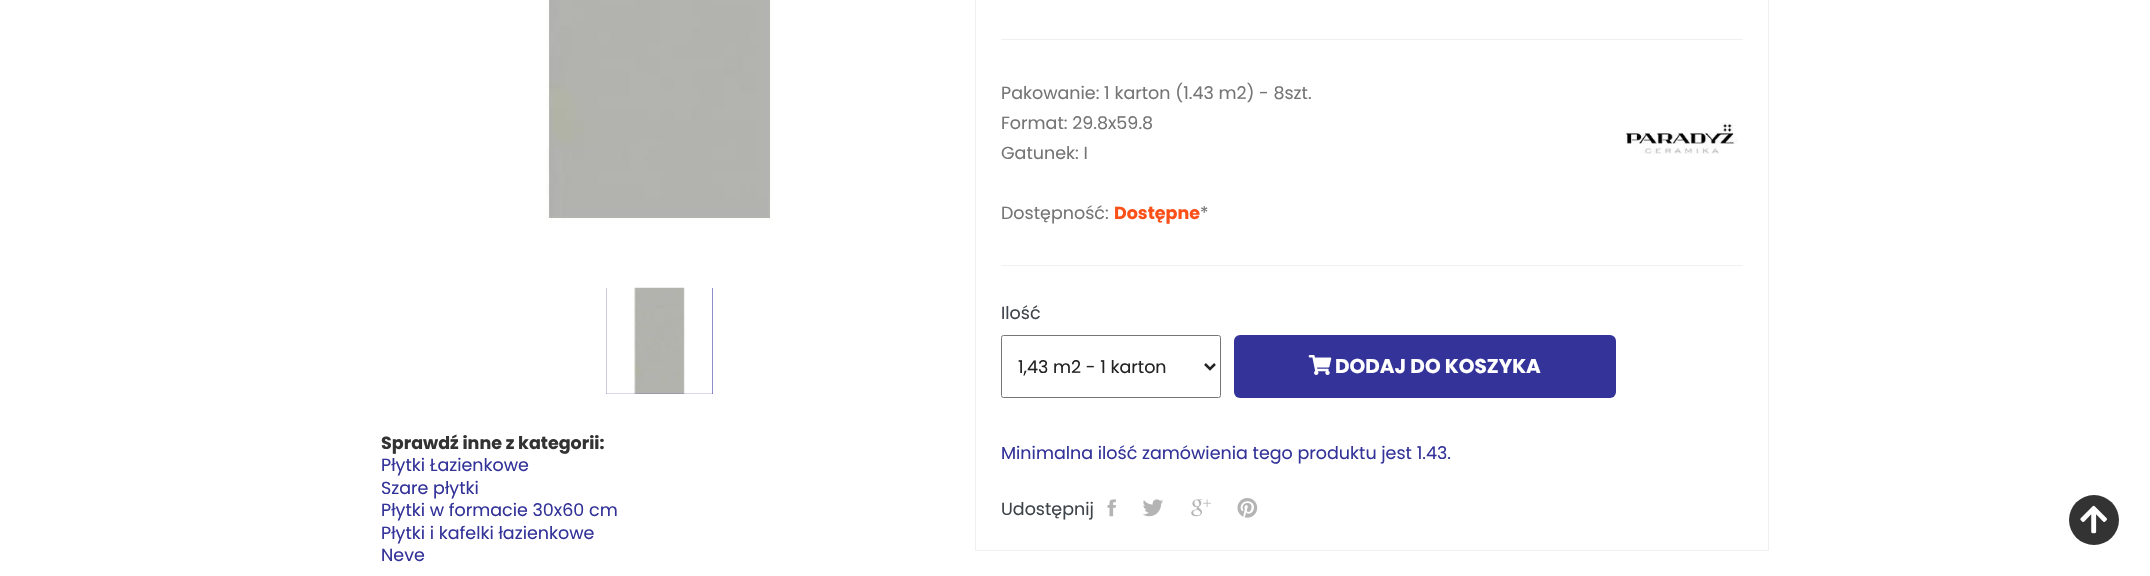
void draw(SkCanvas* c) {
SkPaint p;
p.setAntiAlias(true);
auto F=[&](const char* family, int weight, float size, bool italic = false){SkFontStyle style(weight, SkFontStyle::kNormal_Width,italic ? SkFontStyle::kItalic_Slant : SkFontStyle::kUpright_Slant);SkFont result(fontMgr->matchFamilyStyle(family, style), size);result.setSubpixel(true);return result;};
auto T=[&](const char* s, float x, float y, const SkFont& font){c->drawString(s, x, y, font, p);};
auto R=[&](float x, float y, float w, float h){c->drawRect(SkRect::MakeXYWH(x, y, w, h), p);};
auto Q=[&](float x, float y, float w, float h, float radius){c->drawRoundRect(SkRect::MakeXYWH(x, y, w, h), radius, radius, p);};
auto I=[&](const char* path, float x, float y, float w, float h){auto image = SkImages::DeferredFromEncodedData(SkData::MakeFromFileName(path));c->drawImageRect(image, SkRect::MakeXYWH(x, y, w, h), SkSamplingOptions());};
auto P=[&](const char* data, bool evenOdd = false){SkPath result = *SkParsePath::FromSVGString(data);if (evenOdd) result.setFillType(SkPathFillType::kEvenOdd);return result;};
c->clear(0xffffffff);
I("1.png",546,0,227,221);
p.setStroke(true);
p.setStrokeWidth(1);
p.setColor(0xff333399);
c->drawRect(SkRect::MakeXYWH(606.5,288.5,106,105),p);
I("2.png",606,287,107,107);
auto f1 = F("Poppins",700,17.5);
p.setStroke(false);
p.setColor(0xff333333);
T("Sprawdź inne z kategorii:",381,449,f1);
auto f2 = F("Poppins",400,17.5);
p.setColor(0xff333399);
T("Płytki Łazienkowe",381,471,f2);
T("Szare płytki",381,494,f2);
T("Płytki w formacie 30x60 cm",381,516,f2);
T("Płytki i kafelki łazienkowe",381,539,f2);
T("Neve",381,561,f2);
p.setStroke(true);
p.setColor(0xfff0f0f0);
c->drawRect(SkRect::MakeXYWH(975.5,-.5,793,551),p);
p.setStroke(false);
R(1001,39,742,1);
p.setColor(0xff757575);
T("Pakowanie: 1 karton (1.43 m2) - 8szt.",1001,99,f2);
T("Format: 29.8x59.8",1001,129,f2);
T("Gatunek: I",1001,159,f2);
T("Dostępność:",1001,219,f2);
p.setColor(0xfffd5018);
T("Dostępne",1114,219,f1);
p.setColor(0xff757575);
T("*",1200,219,f2);
I("3.png",1625,122,113,32);
p.setColor(0xfff0f0f0);
R(1001,265,742,1);
p.setColor(0xff3e444a);
T("Ilość",1001,319,f2);
p.setStroke(true);
p.setColor(0xff767676);
c->drawRoundRect(SkRect::MakeXYWH(1001.5,335.5,219,62),2,2,p);
p.setStrokeWidth(2.5);
p.setColor(0xff232323);
c->drawPath(P("M1205 364l5 5l5-5"),p);
p.setStroke(false);
T("1,43 m2 - 1 karton",1018,373,f2);
p.setColor(0xff333399);
Q(1234,335,382,63,6);
I("4.png",1308,355,24,20);
auto f3 = F("Poppins",700,20);
p.setColor(0xffffffff);
T("DODAJ DO KOSZYKA",1335,373,f3);
p.setColor(0xff333399);
T("Minimalna ilość zamówienia tego produktu jest 1.43.",1001,459,f2);
p.setColor(0xff3e444a);
T("Udostępnij",1001,515,f2);
I("5.png",1107,499,9,18);
I("6.png",1142,499,21,18);
I("7.png",1191,499,20,18);
I("8.png",1237,498,21,20);
p.setColor(0xff333333);
c->drawCircle(2094,520,25,p);
I("9.png",2080,505,27,29);
}
